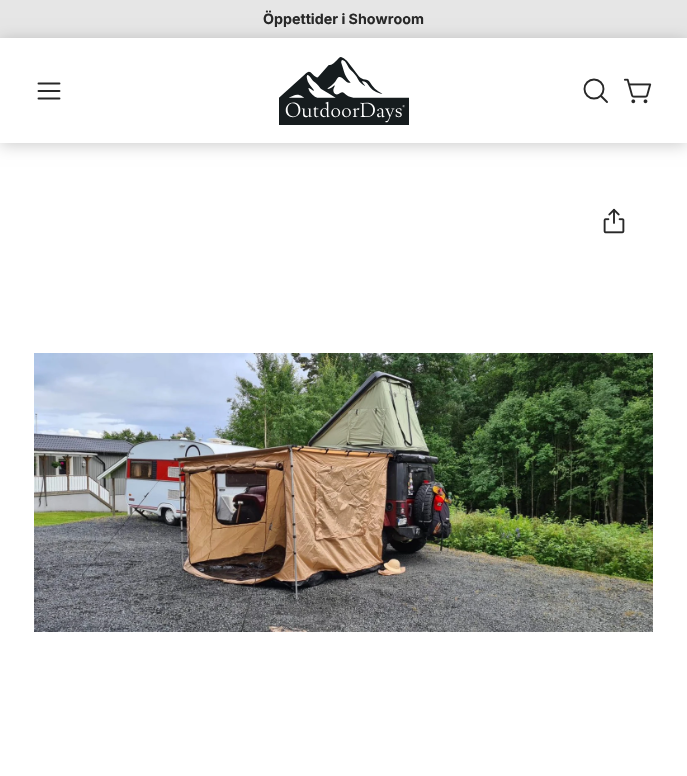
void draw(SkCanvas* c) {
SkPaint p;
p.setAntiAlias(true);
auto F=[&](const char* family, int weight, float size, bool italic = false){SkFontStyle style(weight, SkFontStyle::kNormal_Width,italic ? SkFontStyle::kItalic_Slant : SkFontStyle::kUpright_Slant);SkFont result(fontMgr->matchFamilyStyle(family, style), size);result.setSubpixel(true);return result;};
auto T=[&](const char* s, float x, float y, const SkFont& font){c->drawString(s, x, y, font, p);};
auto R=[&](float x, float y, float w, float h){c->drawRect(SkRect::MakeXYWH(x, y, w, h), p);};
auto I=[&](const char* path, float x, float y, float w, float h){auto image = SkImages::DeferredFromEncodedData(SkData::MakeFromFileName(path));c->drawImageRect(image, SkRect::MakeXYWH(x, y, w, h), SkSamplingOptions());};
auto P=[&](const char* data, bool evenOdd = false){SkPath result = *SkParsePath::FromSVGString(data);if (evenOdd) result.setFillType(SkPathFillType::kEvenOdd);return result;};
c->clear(0xffffffff);
p.setColor(0xffe6e6e6);
R(0,0,687,38);
auto f1 = F("Inter",700,14.25);
p.setColor(0xff282828);
T("Öppettider i Showroom",263,24,f1);
c->save();
c->clipPath(P("M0 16h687v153h-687zm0 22h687v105h-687z",true),true);
p.setColor(0x33000000);
p.setMaskFilter(SkMaskFilter::MakeBlur(kNormal_SkBlurStyle, 7.5));
c->drawRect(SkRect::MakeXYWH(0,40,687,105),p);
p.setMaskFilter(nullptr);
c->restore();
p.setStroke(true);
p.setStrokeWidth(1.9);
p.setStrokeCap(SkPaint::kRound_Cap);
p.setStrokeJoin(SkPaint::kRound_Join);
p.setColor(0xff282828);
c->drawPath(P("M38.5 91h21m-21-7.5h21m-21 15h21"),p);
I("1.png",279,57,130,68);
p.setStrokeCap(SkPaint::kButt_Cap);
p.setStrokeJoin(SkPaint::kMiter_Join);
c->drawCircle(594,89,9.5,p);
p.setStrokeCap(SkPaint::kRound_Cap);
p.setStrokeJoin(SkPaint::kRound_Join);
c->drawPath(P("M601 96l6 6"),p);
I("2.png",623,78,29,26);
I("3.png",603,208,22,26);
I("4.png",34,353,619,279);
}
